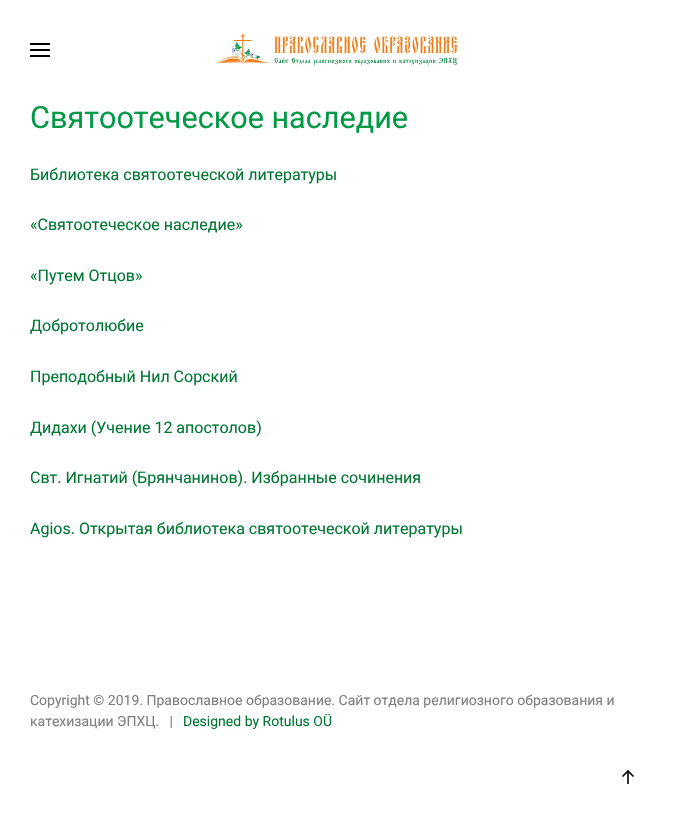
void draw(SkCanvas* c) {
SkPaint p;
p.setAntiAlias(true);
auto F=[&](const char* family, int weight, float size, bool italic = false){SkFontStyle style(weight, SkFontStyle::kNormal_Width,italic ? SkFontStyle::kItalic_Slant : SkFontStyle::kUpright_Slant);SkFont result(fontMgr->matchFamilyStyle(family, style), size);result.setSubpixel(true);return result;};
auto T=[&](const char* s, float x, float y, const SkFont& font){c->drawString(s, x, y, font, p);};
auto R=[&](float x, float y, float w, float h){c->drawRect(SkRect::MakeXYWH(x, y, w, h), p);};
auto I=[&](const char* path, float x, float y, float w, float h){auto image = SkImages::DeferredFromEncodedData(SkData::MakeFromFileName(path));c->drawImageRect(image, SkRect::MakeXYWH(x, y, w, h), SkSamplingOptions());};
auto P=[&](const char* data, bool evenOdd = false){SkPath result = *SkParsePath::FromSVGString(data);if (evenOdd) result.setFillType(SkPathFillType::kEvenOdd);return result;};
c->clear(0xffffffff);
p.setColor(0xff000000);
R(30,43,20,2);
R(30,49,20,2);
R(30,55,20,2);
I("1.png",217,34,240,32);
auto f1 = F("Roboto",400,30.6);
p.setColor(0xff009944);
T("Святоотеческое наследие",30,128,f1);
auto f2 = F("Roboto",400,16);
p.setColor(0xff007733);
T("Библиотека святоотеческой литературы",30,180,f2);
T("«Святоотеческое наследие»",30,230,f2);
T("«Путем Отцов»",30,281,f2);
T("Добротолюбие",30,331,f2);
T("Преподобный Нил Сорский",30,382,f2);
T("Дидахи (Учение 12 апостолов)",30,433,f2);
T("Свт. Игнатий (Брянчанинов). Избранные сочинения",30,483,f2);
T("Agios. Открытая библиотека святоотеческой литературы",30,534,f2);
auto f3 = F("Roboto",400,14);
p.setColor(0xff808080);
T("Copyright © 2019. Православное образование. Сайт отдела религиозного образования и",30,705,f3);
T("катехизации ЭПХЦ.   |",30,726,f3);
p.setColor(0xff007733);
T("Designed by Rotulus OÜ",183,726,f3);
p.setStroke(true);
p.setStrokeWidth(1.6);
p.setColor(0xff000000);
c->drawPath(P("M622.5 776.5l5.5-5.5l5.5 5.5"),p);
p.setStroke(false);
p.setColor(0xcc000000);
R(627,772,2,12);
}
